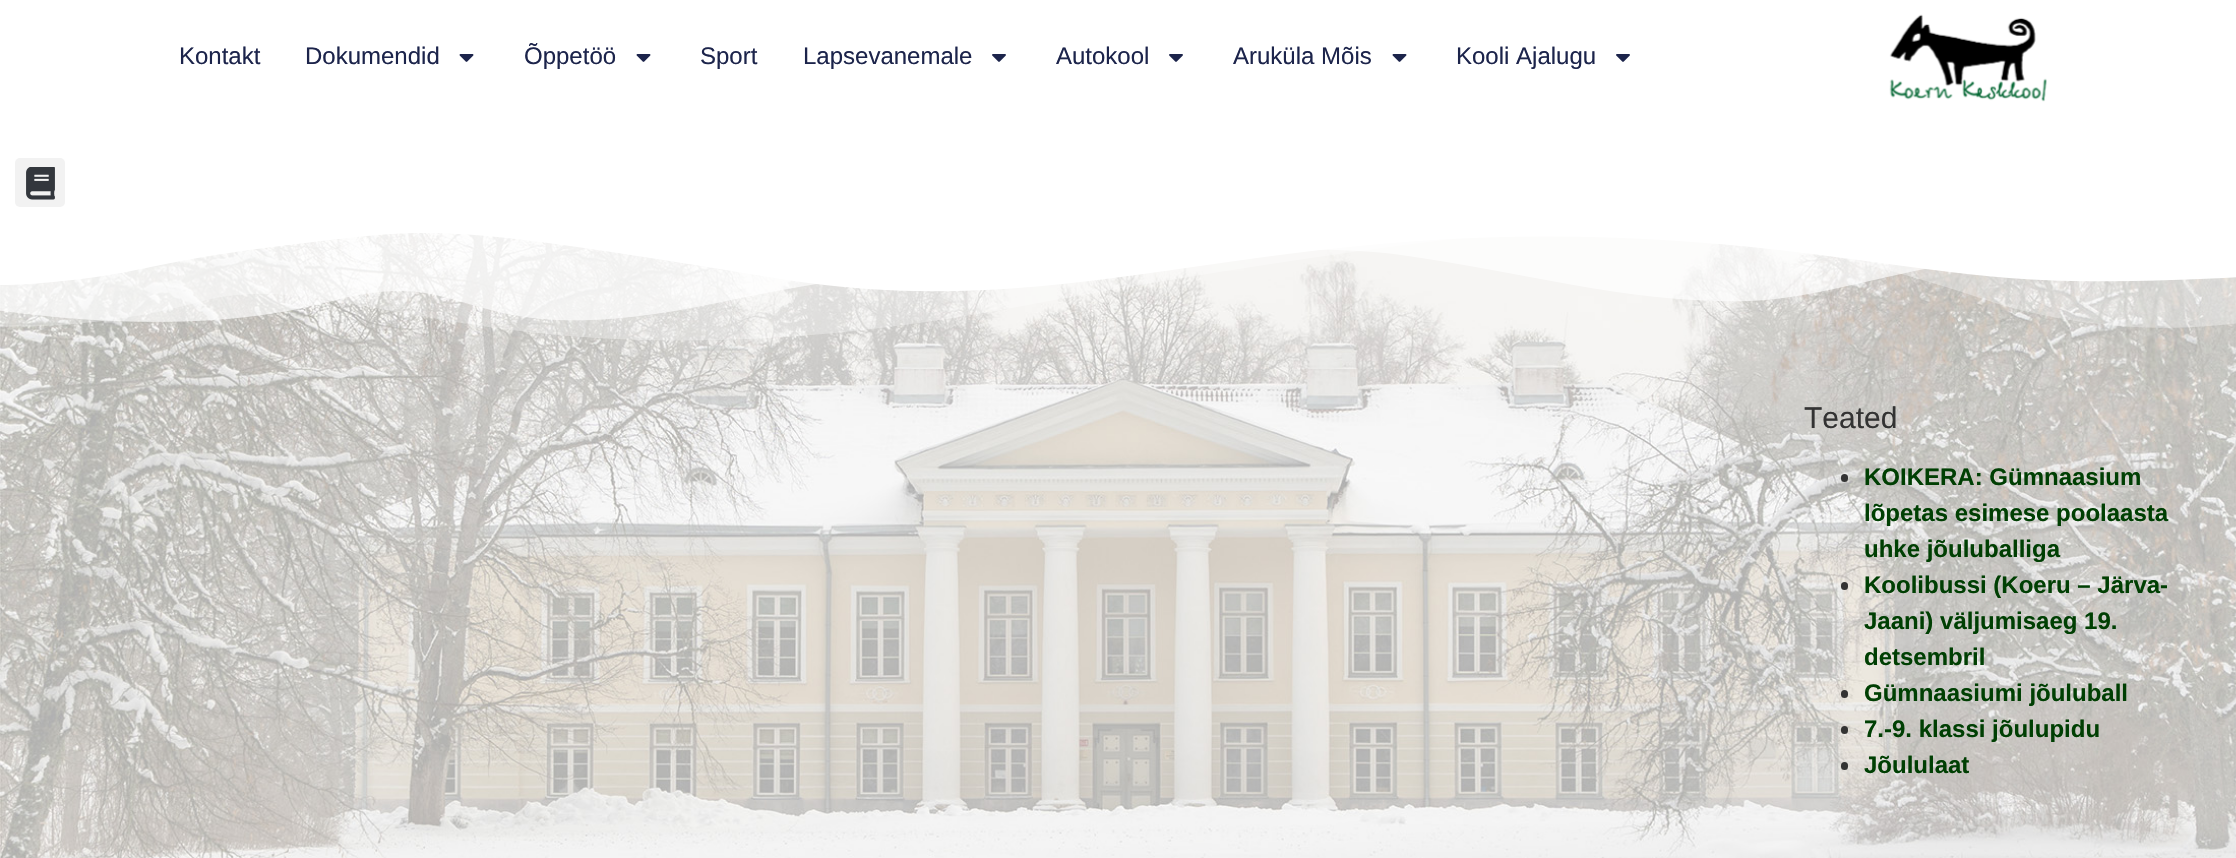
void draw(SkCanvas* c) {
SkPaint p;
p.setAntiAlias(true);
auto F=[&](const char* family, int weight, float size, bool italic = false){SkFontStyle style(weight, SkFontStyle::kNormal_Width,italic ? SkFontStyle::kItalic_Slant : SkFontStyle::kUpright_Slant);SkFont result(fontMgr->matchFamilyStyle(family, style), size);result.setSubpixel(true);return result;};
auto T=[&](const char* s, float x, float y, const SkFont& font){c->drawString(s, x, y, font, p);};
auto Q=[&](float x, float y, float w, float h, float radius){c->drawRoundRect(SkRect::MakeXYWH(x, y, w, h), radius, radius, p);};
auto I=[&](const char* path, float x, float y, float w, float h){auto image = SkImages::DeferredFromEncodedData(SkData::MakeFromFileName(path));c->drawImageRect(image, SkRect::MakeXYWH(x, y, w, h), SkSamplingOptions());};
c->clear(0xffffffff);
auto f1 = F("Liberation Sans",400,24);
p.setColor(0xff1c244b);
T("Kontakt",179,64,f1);
T("Dokumendid",305,64,f1);
I("1.png",459,54,15,8);
T("Õppetöö",524,64,f1);
I("1.png",636,54,15,8);
T("Sport",700,64,f1);
T("Lapsevanemale",803,64,f1);
I("2.png",992,54,14,8);
T("Autokool",1056,64,f1);
I("2.png",1169,54,14,8);
T("Aruküla Mõis",1233,64,f1);
I("1.png",1392,54,15,8);
T("Kooli Ajalugu",1456,64,f1);
I("2.png",1616,54,14,8);
I("3.png",1889,14,158,88);
p.setColor(0xfff2f2f2);
Q(15,158,50,49,5);
I("4.png",26,167,29,33);
I("5.png",0,233,2236,625);
I("6.png",0,222,2236,119);
auto f2 = F("Liberation Sans",400,30);
p.setColor(0xff333333);
T("Teated",1804,428,f2);
Q(1841,474,7,8,3.5);
auto f3 = F("Liberation Sans",700,24);
p.setColor(0xff003f03);
T("KOIKERA: Gümnaasium",1864,485,f3);
T("lõpetas esimese poolaasta",1864,521,f3);
T("uhke jõuluballiga",1864,557,f3);
p.setColor(0xff333333);
Q(1841,582,7,8,3.5);
p.setColor(0xff003f03);
T("Koolibussi (Koeru – Järva-",1864,593,f3);
T("Jaani) väljumisaeg 19.",1864,629,f3);
T("detsembril",1864,665,f3);
p.setColor(0xff333333);
Q(1841,690,7,8,3.5);
p.setColor(0xff003f03);
T("Gümnaasiumi jõuluball",1864,701,f3);
p.setColor(0xff333333);
Q(1841,726,7,8,3.5);
p.setColor(0xff003f03);
T("7.-9. klassi jõulupidu",1864,737,f3);
p.setColor(0xff333333);
Q(1841,762,7,8,3.5);
p.setColor(0xff003f03);
T("Jõululaat",1864,773,f3);
}
